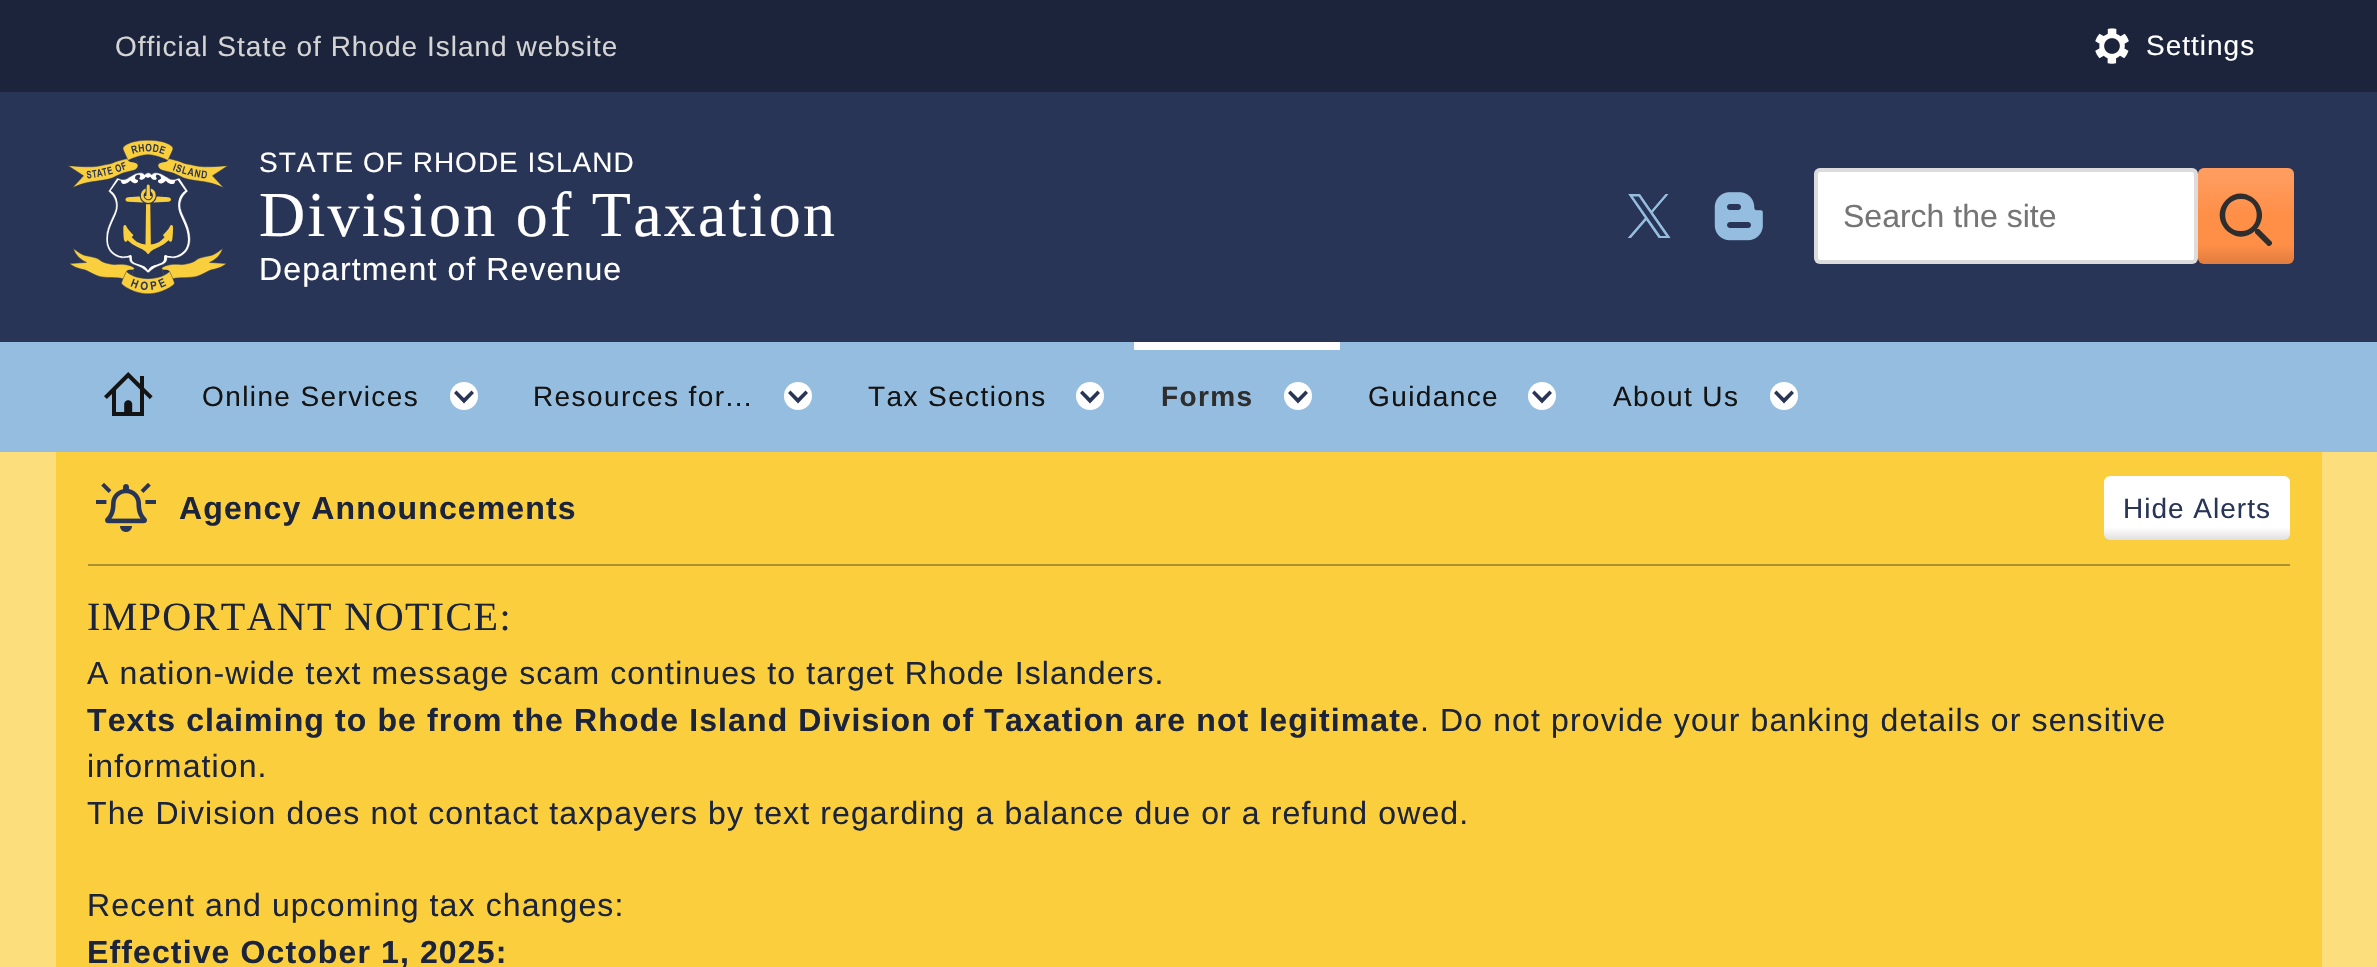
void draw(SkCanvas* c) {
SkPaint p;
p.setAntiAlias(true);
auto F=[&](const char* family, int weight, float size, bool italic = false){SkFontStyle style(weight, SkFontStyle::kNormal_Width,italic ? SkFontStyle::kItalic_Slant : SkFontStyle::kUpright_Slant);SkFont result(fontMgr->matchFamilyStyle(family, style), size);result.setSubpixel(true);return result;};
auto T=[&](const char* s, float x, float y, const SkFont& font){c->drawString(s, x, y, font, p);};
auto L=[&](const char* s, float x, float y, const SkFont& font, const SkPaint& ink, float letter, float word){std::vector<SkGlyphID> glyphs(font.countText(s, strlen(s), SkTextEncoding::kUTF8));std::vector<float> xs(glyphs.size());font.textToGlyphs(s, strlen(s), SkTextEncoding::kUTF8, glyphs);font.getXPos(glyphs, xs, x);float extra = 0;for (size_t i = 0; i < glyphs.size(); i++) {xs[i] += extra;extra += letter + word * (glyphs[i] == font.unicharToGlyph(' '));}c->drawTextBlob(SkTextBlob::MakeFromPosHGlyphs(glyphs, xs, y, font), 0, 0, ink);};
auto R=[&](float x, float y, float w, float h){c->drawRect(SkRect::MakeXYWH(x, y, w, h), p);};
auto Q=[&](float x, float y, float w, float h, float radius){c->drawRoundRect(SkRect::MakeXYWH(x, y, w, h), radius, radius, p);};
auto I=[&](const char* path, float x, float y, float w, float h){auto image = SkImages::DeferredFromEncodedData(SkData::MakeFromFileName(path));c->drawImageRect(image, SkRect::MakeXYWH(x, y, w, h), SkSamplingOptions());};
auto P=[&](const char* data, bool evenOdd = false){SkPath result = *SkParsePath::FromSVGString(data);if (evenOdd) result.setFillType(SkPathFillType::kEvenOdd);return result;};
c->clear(0xfffcde7d);
p.setColor(0xff293557);
R(0,92,2377,250);
p.setColor(0xff1b243b);
R(0,0,2377,92);
auto f1 = F("Liberation Sans",400,28);
p.setColor(0xffd4d4d4);
L("Official State of Rhode Island website",115,56,f1,p,1,0);
I("1.png",2095,28,34,36);
p.setColor(0xffffffff);
L("Settings",2146,55,f1,p,1,0);
I("2.png",68,140,160,154);
L("STATE OF RHODE ISLAND",259,172,f1,p,1,0);
auto f2 = F("Liberation Serif",400,64);
L("Division of Taxation",259,236,f2,p,2.25,0);
auto f3 = F("Liberation Sans",400,32);
L("Department of Revenue",259,280,f3,p,1.12,0);
I("3.png",1628,194,43,44);
I("4.png",1714,192,49,49);
Q(1814,168,384,96,6);
p.setStroke(true);
p.setStrokeWidth(4);
p.setColor(0x26141414);
c->drawRoundRect(SkRect::MakeXYWH(1816,170,380,92),4,4,p);
p.setStroke(false);
p.setColor(0xff757575);
T("Search the site",1843,227,f3);
p.setColor(0xffff8e47);
Q(2198,168,96,96,6);
{
const SkColor colors[] = {0x1fffffff,0x00ffffff,0x00000000,0x1f000000};
const float stops[] = {.1,.5,.8,1};
const SkPoint ends[] = {{2246,168}, {2246,264}};
p.setShader(SkGradientShader::MakeLinear(ends, colors, stops, 4, SkTileMode::kClamp));
p.setAlpha(255);
}
Q(2198,168,96,96,6);
p.setShader(nullptr);
p.setColor(0xff2e2e2e);
c->drawPath(P("M2272 242l-13-13h-2c17-21-12-48-31-29c-19 20 9 49 29 31v2l13 13c0 0 1 0 2 0l2-2c0-1 0-2 0-2zm-31-11c-21 0-21-32 0-32c21 0 21 32 0 32z"),p);
p.setColor(0xff95bddf);
R(0,342,2377,110);
I("5.png",104,372,49,44);
p.setColor(0xff141414);
L("Online Services",202,406,f1,p,1.4,0);
p.setColor(0xffffffff);
c->drawCircle(464,396,14,p);
p.setColor(0xff293557);
c->drawPath(P("M471.5 390.5l-7.5 7.5l-7.5-7.5l-2.5 2.5l10 10.5l10-10.5z"),p);
p.setColor(0xff141414);
L("Resources for...",533,406,f1,p,1.4,0);
p.setColor(0xffffffff);
c->drawCircle(798,396,14,p);
p.setColor(0xff293557);
c->drawPath(P("M805.5 390.5l-7.5 7.5l-7.5-7.5l-2.5 2.5l10 10.5l10-10.5z"),p);
p.setColor(0xff141414);
L("Tax Sections",868,406,f1,p,1.4,0);
p.setColor(0xffffffff);
c->drawCircle(1090,396,14,p);
p.setColor(0xff293557);
c->drawPath(P("M1097.5 390.5l-7.5 7.5l-7.5-7.5l-2.5 2.5l10 10.5l10-10.5z"),p);
p.setColor(0xffffffff);
R(1134,342,206,8);
auto f4 = F("Liberation Sans",700,28);
p.setColor(0xff2e2e2e);
L("Forms",1161,406,f4,p,1.4,0);
p.setColor(0xffffffff);
c->drawCircle(1298,396,14,p);
p.setColor(0xff293557);
c->drawPath(P("M1305.5 390.5l-7.5 7.5l-7.5-7.5l-2.5 2.5l10 10.5l10-10.5z"),p);
p.setColor(0xff141414);
L("Guidance",1368,406,f1,p,1.4,0);
p.setColor(0xffffffff);
c->drawCircle(1542,396,14,p);
p.setColor(0xff293557);
c->drawPath(P("M1549.5 390.5l-7.5 7.5l-7.5-7.5l-2.5 2.5l10 10.5l10-10.5z"),p);
p.setColor(0xff141414);
L("About Us",1613,406,f1,p,1.4,0);
p.setColor(0xffffffff);
c->drawCircle(1784,396,14,p);
p.setColor(0xff293557);
c->drawPath(P("M1791.5 390.5l-7.5 7.5l-7.5-7.5l-2.5 2.5l10 10.5l10-10.5z"),p);
p.setColor(0xffface3d);
R(56,452,2266,515);
I("6.png",96,483,60,49);
auto f5 = F("Liberation Sans",700,32);
p.setColor(0xff1b243b);
L("Agency Announcements",179,519,f5,p,1.12,0);
p.setColor(0xffffffff);
Q(2104,476,186,64,6);
{
const SkColor colors[] = {0x1fffffff,0x00ffffff,0x00000000,0x1f000000};
const float stops[] = {.1,.5,.8,1};
const SkPoint ends[] = {{2197,476}, {2197,540}};
p.setShader(SkGradientShader::MakeLinear(ends, colors, stops, 4, SkTileMode::kClamp));
p.setAlpha(255);
}
Q(2104,476,186,64,6);
p.setShader(nullptr);
p.setColor(0xff293557);
L("Hide Alerts",2123,518,f1,p,1,0);
p.setColor(0xffae912f);
R(88,564,2202,2);
auto f6 = F("Liberation Serif",400,40);
p.setColor(0xff1b243b);
L("IMPORTANT NOTICE:",87,630,f6,p,1.4,0);
L("A nation-wide text message scam continues to target Rhode Islanders.",87,684,f3,p,1.12,0);
L("Texts claiming to be from the Rhode Island Division of Taxation are not legitimate",87,731,f5,p,1.12,0);
L(". Do not provide your banking details or sensitive",1420,731,f3,p,1.12,0);
L("information.",87,777,f3,p,1.12,0);
L("The Division does not contact taxpayers by text regarding a balance due or a refund owed.",87,824,f3,p,1.12,0);
L("Recent and upcoming tax changes:",87,916,f3,p,1.12,0);
L("Effective October 1, 2025:",87,963,f5,p,1.12,0);
}
